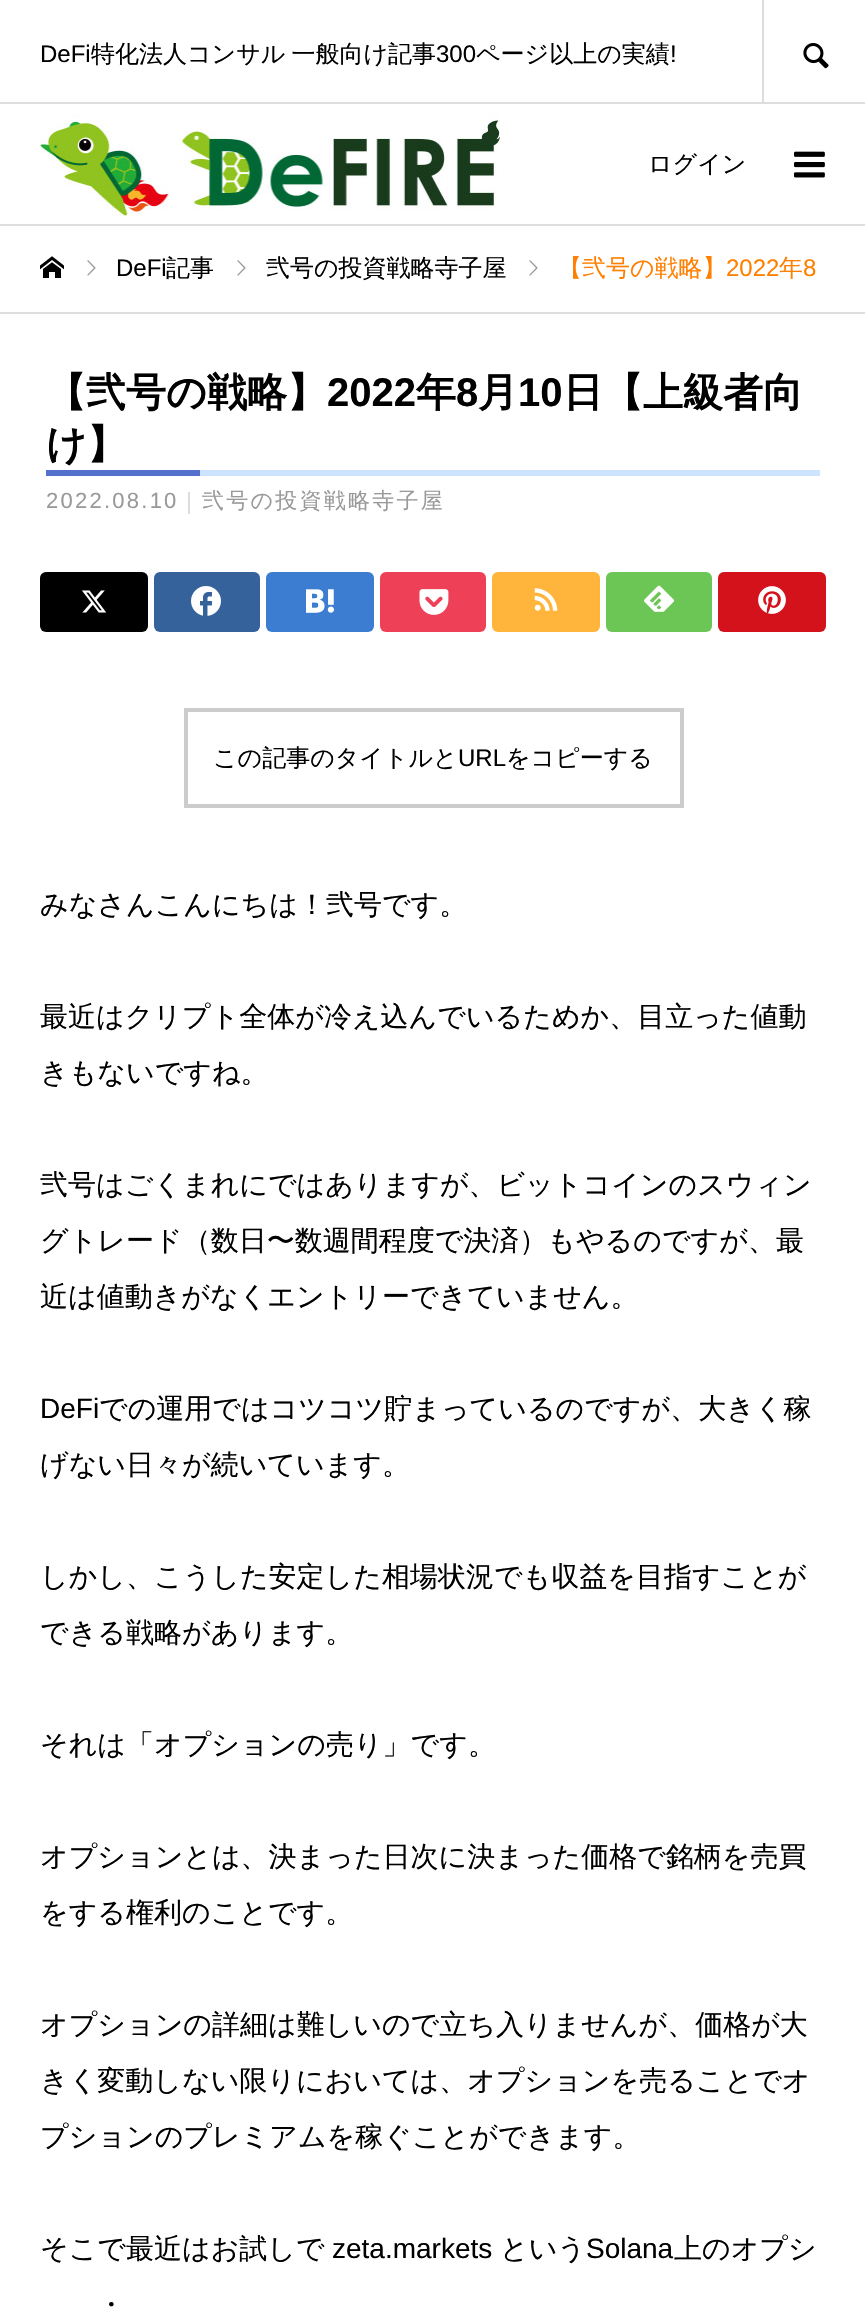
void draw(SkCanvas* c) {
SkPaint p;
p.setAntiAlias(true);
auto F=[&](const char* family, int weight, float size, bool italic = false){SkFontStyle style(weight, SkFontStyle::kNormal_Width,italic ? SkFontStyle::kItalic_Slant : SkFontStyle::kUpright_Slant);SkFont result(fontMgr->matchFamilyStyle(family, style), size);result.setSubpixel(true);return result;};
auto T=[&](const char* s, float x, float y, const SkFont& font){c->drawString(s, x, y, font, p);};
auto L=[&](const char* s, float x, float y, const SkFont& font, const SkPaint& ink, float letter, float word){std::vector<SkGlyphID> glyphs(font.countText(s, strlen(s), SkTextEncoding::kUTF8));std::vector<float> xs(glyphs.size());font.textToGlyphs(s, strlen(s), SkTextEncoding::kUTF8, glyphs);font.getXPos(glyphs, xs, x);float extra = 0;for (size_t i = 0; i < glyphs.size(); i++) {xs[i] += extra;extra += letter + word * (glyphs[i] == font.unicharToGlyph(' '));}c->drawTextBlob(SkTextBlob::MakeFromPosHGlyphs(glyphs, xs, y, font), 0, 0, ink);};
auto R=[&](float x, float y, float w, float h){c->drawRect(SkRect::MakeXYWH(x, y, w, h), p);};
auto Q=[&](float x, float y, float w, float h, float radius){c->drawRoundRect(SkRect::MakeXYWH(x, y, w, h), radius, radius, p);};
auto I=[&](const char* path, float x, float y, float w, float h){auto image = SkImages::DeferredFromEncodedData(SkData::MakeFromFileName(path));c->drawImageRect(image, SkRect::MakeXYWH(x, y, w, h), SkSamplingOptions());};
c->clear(0xffffffff);
p.setColor(0xffdddddd);
R(0,224,865,2);
auto f1 = F("Liberation Sans",400,24);
p.setColor(0xff000000);
T("DeFi",40,62,f1);
auto f2 = F("WenQuanYi Zen Hei",500,24);
L("特化法人コンサル 一般向け記事",91,62,f2,p,0,-1);
T("300",436,62,f1);
T("ページ以上の実績",476,62,f2);
T("!",670,62,f1);
I("1.png",40,114,460,102);
p.setColor(0xffdddddd);
R(0,102,865,2);
R(762,0,2,102);
I("2.png",803,43,26,26);
p.setColor(0xff000000);
T("ログイン",648,172,f2);
I("3.png",794,151,31,27);
I("4.png",40,256,24,22);
I("5.png",87,260,9,16);
T("DeFi",116,276,f1);
T("記事",166,276,f2);
I("5.png",237,260,9,16);
T("弐号の投資戦略寺子屋",266,276,f2);
I("5.png",529,260,9,16);
p.setColor(0xffff7f00);
T("【弐号の戦略】",558,276,f2);
T("2022",726,276,f1);
T("年",779,276,f2);
T("8",803,276,f1);
p.setColor(0xffdddddd);
R(0,312,865,2);
p.setColor(0xffcce4ff);
R(200,470,620,6);
auto f3 = F("WenQuanYi Zen Hei",700,40);
p.setColor(0xff000000);
T("【弐号の戦略】",46,406,f3);
auto f4 = F("Liberation Sans",700,40);
T("2022",327,406,f4);
T("年",416,406,f3);
T("8",456,406,f4);
T("月",478,406,f3);
T("10",518,406,f4);
T("日【上級者向",563,406,f3);
T("け】",46,458,f3);
p.setColor(0xff5472cd);
R(46,470,154,6);
auto f5 = F("Liberation Sans",400,22);
p.setColor(0xff999999);
L("2022.08.10",46,508,f5,p,2.25,0);
p.setColor(0xffdddddd);
R(188,492,2,22);
auto f6 = F("WenQuanYi Zen Hei",500,22);
p.setColor(0xff999999);
L("弐号の投資戦略寺子屋",202,508,f6,p,2.25,0);
p.setColor(0xff000000);
Q(40,572,108,60,6);
I("6.png",82,590,25,23);
p.setColor(0xff35629a);
Q(154,572,106,60,6);
I("7.png",191,586,30,30);
p.setColor(0xff3c7dd1);
Q(266,572,108,60,6);
I("8.png",306,589,28,24);
p.setColor(0xffee4056);
Q(380,572,106,60,6);
I("9.png",419,589,30,26);
p.setColor(0xffffb53c);
Q(492,572,108,60,6);
I("10.png",534,588,24,23);
p.setColor(0xff6cc655);
Q(606,572,106,60,6);
I("11.png",644,585,30,27);
p.setColor(0xffd4121c);
Q(718,572,108,60,6);
I("12.png",758,586,28,28);
p.setStroke(true);
p.setStrokeWidth(4);
p.setColor(0xffcccccc);
c->drawRect(SkRect::MakeXYWH(186,710,496,96),p);
p.setStroke(false);
p.setColor(0xff000000);
T("この記事のタイトルと",213,766,f2);
T("URL",458,766,f1);
T("をコピーする",506,766,f2);
auto f7 = F("WenQuanYi Zen Hei",500,28);
T("みなさんこんにちは！弐号です。",40,914,f7);
T("最近はクリプト全体が冷え込んでいるためか、目立った値動",40,1026,f7);
T("きもないですね。",40,1082,f7);
T("弐号はごくまれにではありますが、ビットコインのスウィン",40,1194,f7);
T("グトレード（数日〜数週間程度で決済）もやるのですが、最",40,1250,f7);
T("近は値動きがなくエントリーできていません。",40,1306,f7);
auto f8 = F("Liberation Sans",400,28);
T("DeFi",40,1418,f8);
T("での運用ではコツコツ貯まっているのですが、大きく稼",99,1418,f7);
T("げない日々が続いています。",40,1474,f7);
T("しかし、こうした安定した相場状況でも収益を目指すことが",40,1586,f7);
T("できる戦略があります。",40,1642,f7);
T("それは「オプションの売り」です。",40,1754,f7);
T("オプションとは、決まった日次に決まった価格で銘柄を売買",40,1866,f7);
T("をする権利のことです。",40,1922,f7);
T("オプションの詳細は難しいので立ち入りませんが、価格が大",40,2034,f7);
T("きく変動しない限りにおいては、オプションを売ることでオ",40,2090,f7);
T("プションのプレミアムを稼ぐことができます。",40,2146,f7);
T("そこで最近はお試しで",40,2258,f7);
T("zeta.markets",332,2258,f8);
T("という",500,2258,f7);
T("Solana",586,2258,f8);
T("上のオプシ",674,2258,f7);
T("・",97,2314,f7);
}
